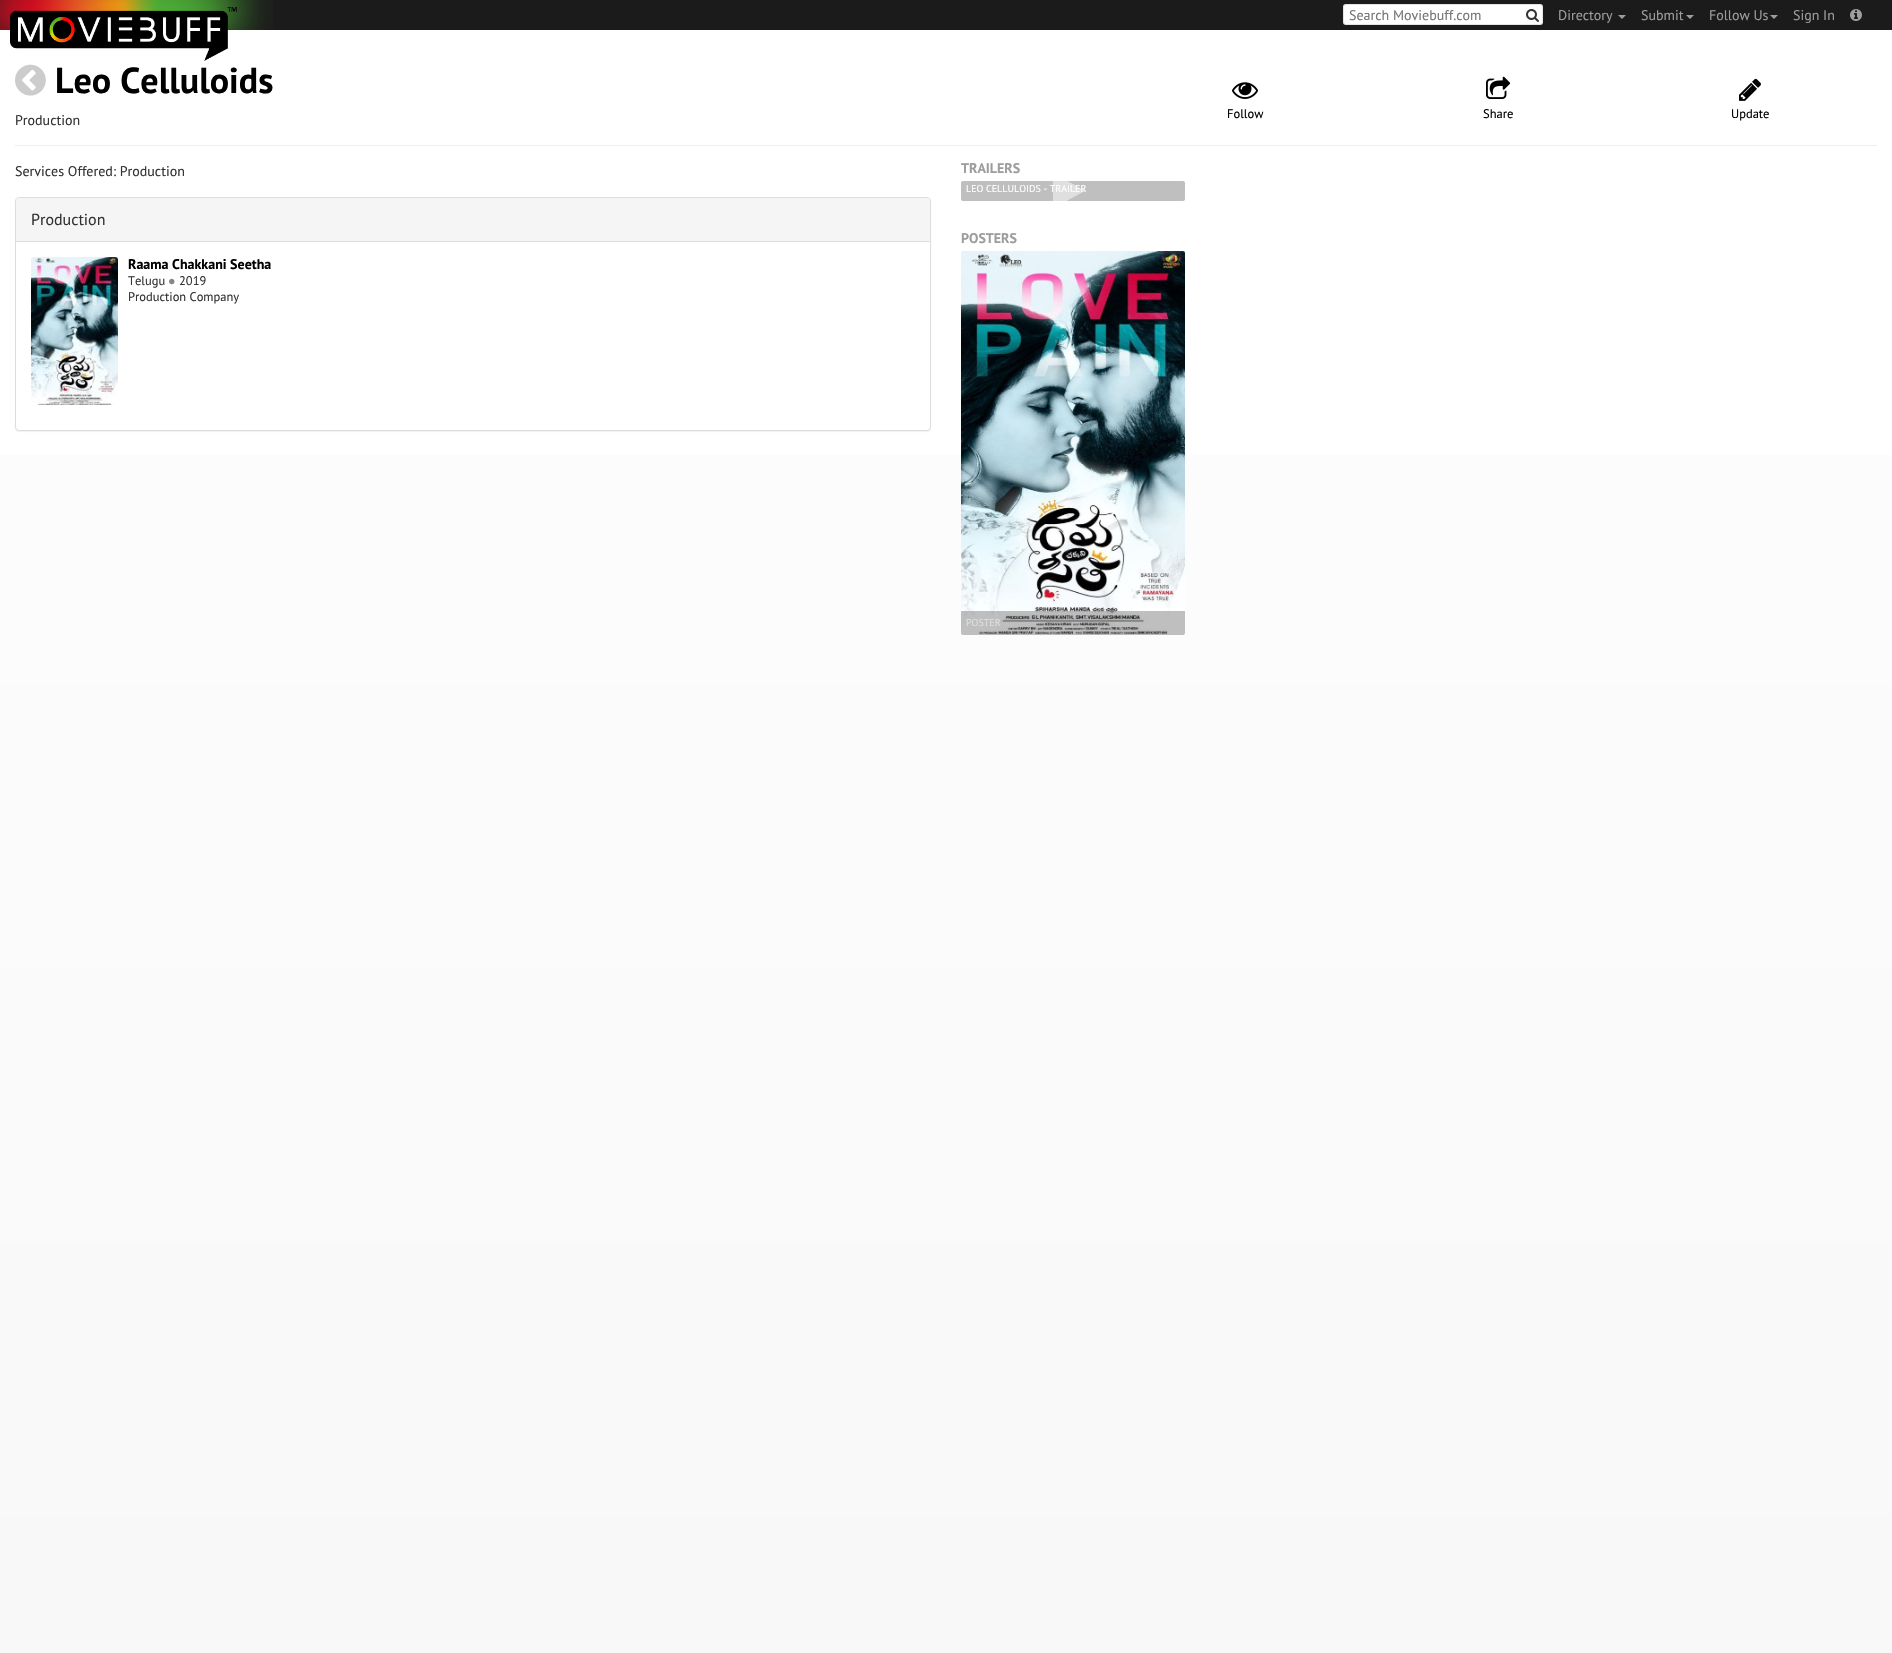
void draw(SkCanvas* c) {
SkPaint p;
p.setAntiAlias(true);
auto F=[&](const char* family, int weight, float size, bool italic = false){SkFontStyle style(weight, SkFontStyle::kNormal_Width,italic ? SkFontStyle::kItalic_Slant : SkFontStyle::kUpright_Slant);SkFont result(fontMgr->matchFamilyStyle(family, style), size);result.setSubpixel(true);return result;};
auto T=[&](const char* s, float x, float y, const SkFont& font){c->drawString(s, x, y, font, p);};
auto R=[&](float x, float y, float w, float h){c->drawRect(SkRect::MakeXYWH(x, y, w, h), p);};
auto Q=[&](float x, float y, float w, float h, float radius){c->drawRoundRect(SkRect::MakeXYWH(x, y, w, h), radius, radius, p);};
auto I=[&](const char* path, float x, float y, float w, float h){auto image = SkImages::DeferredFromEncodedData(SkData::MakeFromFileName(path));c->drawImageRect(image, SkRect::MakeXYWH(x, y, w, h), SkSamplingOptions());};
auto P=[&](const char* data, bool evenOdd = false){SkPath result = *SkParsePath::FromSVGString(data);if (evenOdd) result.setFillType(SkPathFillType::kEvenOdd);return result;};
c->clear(0xffffffff);
{
const SkColor colors[] = {0xffffffff,0xfffcfcfc,0xfffafafa,0xfff8f8f8};
const float stops[] = {0,.33,.67,1};
const SkPoint ends[] = {{946,0}, {946,1653}};
p.setShader(SkGradientShader::MakeLinear(ends, colors, stops, 4, SkTileMode::kClamp));
p.setAlpha(255);
}
R(0,455,1892,1198);
p.setShader(nullptr);
p.setColor(0xff1b1b1b);
R(0,0,1892,30);
I("1.png",0,0,273,30);
I("2.png",10,7,227,54);
p.setColor(0xffffffff);
Q(1343,4,200,21,3);
p.setStroke(true);
p.setStrokeWidth(1);
p.setColor(0x1a000000);
c->drawRoundRect(SkRect::MakeXYWH(1343.5,4.5,199,20),2.5,2.5,p);
auto f1 = F("PT Sans",400,14);
p.setStroke(false);
p.setColor(0xff757575);
T("Search Moviebuff.com",1349,20,f1);
I("3.png",1526,9,13,13);
p.setColor(0xff9d9d9d);
T("Directory",1558,20,f1);
c->drawPath(P("M1618 15h8l-4 4z"),p);
T("Submit",1641,20,f1);
c->drawPath(P("M1686 15h8l-4 4z"),p);
T("Follow Us",1709,20,f1);
c->drawPath(P("M1770 15h8l-4 4z"),p);
T("Sign In",1793,20,f1);
I("4.png",1850,9,12,12);
I("5.png",15,64,31,32);
auto f2 = F("PT Sans",700,36);
p.setColor(0xff000000);
T("Leo Celluloids",55,93,f2);
p.setColor(0xff333333);
T("Production",15,125,f1);
I("6.png",1232,82,26,17);
auto f3 = F("PT Sans",400,12.5);
p.setColor(0xff000000);
T("Follow",1227,118,f3);
I("7.png",1486,76,25,23);
T("Share",1483,118,f3);
I("8.png",1739,78,22,23);
T("Update",1731,118,f3);
p.setColor(0xffeeeeee);
R(15,145,1862,1);
p.setColor(0xff333333);
T("Services Offered: Production",15,176,f1);
p.setColor(0x0d000000);
p.setMaskFilter(SkMaskFilter::MakeBlur(kNormal_SkBlurStyle, .5));
c->drawRoundRect(SkRect::MakeXYWH(15,198,916,234),4,4,p);
p.setMaskFilter(nullptr);
p.setColor(0xffffffff);
c->drawRoundRect(SkRect::MakeXYWH(15.5,197.5,915,233),3.5,3.5,p);
p.setStroke(true);
p.setColor(0xffdddddd);
c->drawRoundRect(SkRect::MakeXYWH(15.5,197.5,915,233),3.5,3.5,p);
p.setStroke(false);
p.setColor(0xfff5f5f5);
c->drawPath(P("M19 198h908c1.5 0 3 1.5 3 3v41h-914v-41c0-1.5 1.5-3 3-3z"),p);
p.setColor(0xffdddddd);
R(16,241,914,1);
auto f4 = F("PT Sans",400,16);
p.setColor(0xff333333);
T("Production",31,225,f4);
I("9.png",31,257,87,148);
auto f5 = F("PT Sans",700,14);
p.setColor(0xff000000);
T("Raama Chakkani Seetha",128,269,f5);
p.setColor(0xff333333);
T("Telugu",128,285,f3);
auto f6 = F("Liberation Serif",400,12.5);
p.setColor(0xff858585);
T("●",168,285,f6);
p.setColor(0xff333333);
T("2019",179,285,f3);
T("Production Company",128,301,f3);
p.setColor(0xff9d9d9d);
T("TRAILERS",961,173,f5);
p.setColor(0xffbfbfbf);
Q(961,181,224,20,2);
auto f7 = F("PT Sans",400,10);
p.setColor(0xffffffff);
T("LEO CELLULOIDS - TRAILER",966,192,f7);
p.setColor(0x80ffffff);
c->drawPath(P("M1084 191.5l-17.5 9.5h-13.5v-20h14.5l16.5 9c.5 .5 .5 1 0 1.5z"),p);
p.setColor(0xff9d9d9d);
T("POSTERS",961,243,f5);
I("10.png",961,251,224,384);
p.setColor(0x40000000);
c->drawPath(P("M961 611h224v22c0 1-1 2-2 2h-220c-1 0-2-1-2-2z"),p);
p.setColor(0xffdfdfdf);
T("POSTER",966,626,f7);
}
